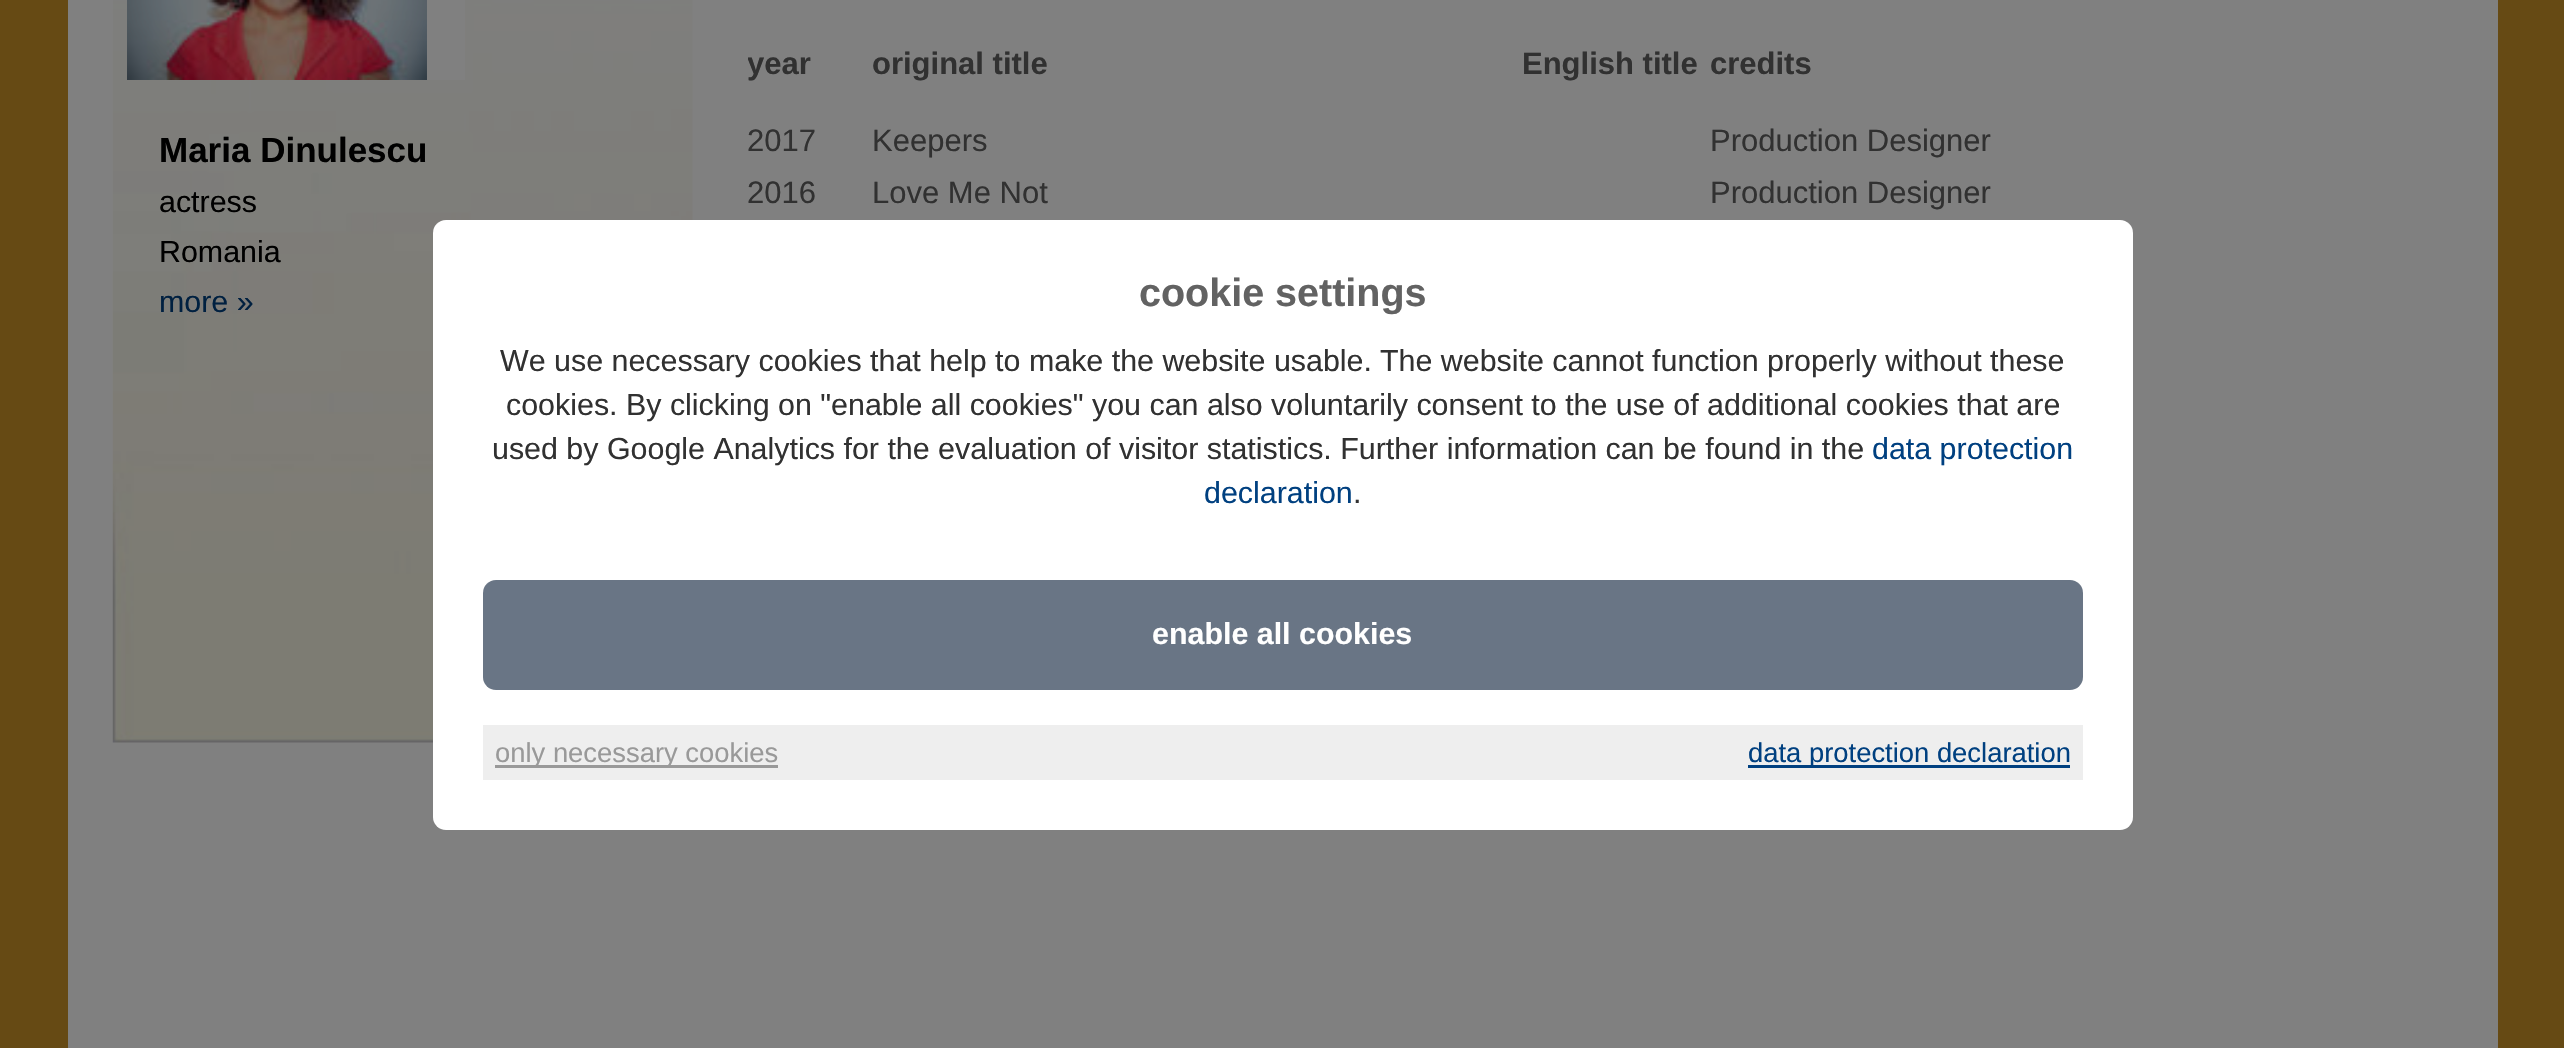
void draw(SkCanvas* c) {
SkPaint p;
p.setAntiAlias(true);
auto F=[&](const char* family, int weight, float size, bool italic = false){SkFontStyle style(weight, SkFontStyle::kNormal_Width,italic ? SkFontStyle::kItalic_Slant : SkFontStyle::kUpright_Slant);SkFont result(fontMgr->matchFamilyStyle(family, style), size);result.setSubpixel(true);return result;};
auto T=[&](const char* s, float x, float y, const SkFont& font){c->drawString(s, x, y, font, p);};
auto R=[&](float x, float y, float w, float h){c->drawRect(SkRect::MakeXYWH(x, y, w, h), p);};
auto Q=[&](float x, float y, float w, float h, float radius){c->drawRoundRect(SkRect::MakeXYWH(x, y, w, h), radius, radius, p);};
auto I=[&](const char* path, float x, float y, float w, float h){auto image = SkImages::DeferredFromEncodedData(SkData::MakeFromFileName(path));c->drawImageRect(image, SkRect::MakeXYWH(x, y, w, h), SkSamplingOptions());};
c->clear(0xff664a14);
p.setColor(0xff808080);
R(68,0,2430,1048);
I("1.png",112,0,581,743);
R(427,0,38,80);
I("2.png",127,0,300,80);
auto f1 = F("Liberation Sans",700,35);
p.setColor(0xff000000);
T("Maria Dinulescu",159,162,f1);
auto f2 = F("Liberation Sans",400,30.4);
T("actress",159,212,f2);
T("Romania",159,262,f2);
p.setColor(0xff002040);
T("more »",159,312,f2);
c->save();
c->clipRect(SkRect::MakeXYWH(748,0,1705,748));
auto f3 = F("Liberation Sans",700,31);
p.setColor(0xff313131);
T("year",747,74,f3);
c->restore();
T("original title",872,74,f3);
T("English title",1522,74,f3);
T("credits",1710,74,f3);
auto f4 = F("Liberation Sans",400,31);
T("2017",747,151,f4);
T("Keepers",872,151,f4);
T("Production Designer",1710,151,f4);
T("2016",747,203,f4);
T("Love Me Not",872,203,f4);
T("Production Designer",1710,203,f4);
p.setColor(0xffffffff);
Q(433,220,1700,610,13);
auto f5 = F("Liberation Sans",700,39.5);
p.setColor(0xff626262);
T("cookie settings",1139,306,f5);
p.setColor(0xff313131);
T("We use necessary cookies that help to make the website usable.",500,371,f2);
T("The website cannot function properly without these",1380,371,f2);
T("cookies. By clicking on \"enable all cookies\" you can also voluntarily consent to the use of additional cookies that are",506,415,f2);
T("used by Google Analytics for the evaluation of visitor statistics. Further information can be found in the",492,459,f2);
p.setColor(0xff004080);
T("data protection",1872,459,f2);
T("declaration",1204,503,f2);
p.setColor(0xff313131);
T(".",1353,503,f2);
p.setColor(0xff697585);
Q(483,580,1600,110,13);
auto f6 = F("Liberation Sans",700,30.4);
p.setColor(0xffffffff);
T("enable all cookies",1152,644,f6);
p.setColor(0xffeeeeee);
R(483,725,1600,55);
p.setColor(0xff999999);
R(495,765,283,3);
auto f7 = F("Liberation Sans",400,27.4);
T("only necessary cookies",495,762,f7);
p.setColor(0xff004080);
R(1748,765,322,3);
T("data protection declaration",1748,762,f7);
}
